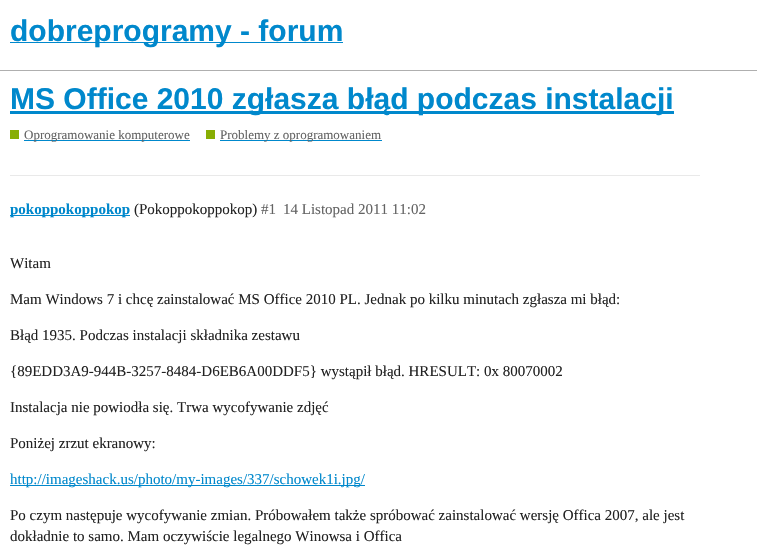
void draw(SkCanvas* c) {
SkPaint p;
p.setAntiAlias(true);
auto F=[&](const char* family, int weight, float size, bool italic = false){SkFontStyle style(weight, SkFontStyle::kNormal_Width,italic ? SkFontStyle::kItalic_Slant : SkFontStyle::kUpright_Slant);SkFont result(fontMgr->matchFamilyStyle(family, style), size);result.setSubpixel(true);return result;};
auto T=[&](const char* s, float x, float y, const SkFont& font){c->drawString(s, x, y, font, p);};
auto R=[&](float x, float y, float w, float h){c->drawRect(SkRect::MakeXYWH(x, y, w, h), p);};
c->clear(0xffffffff);
p.setColor(0xffafafaf);
R(0,70,757,1);
p.setColor(0xff0088cc);
R(10,42,333,1);
auto f1 = F("Liberation Sans",700,30);
T("dobreprogramy - forum",10,41,f1);
R(10,111,664,3);
T("MS Office 2010 zgłasza błąd podczas instalacji",10,109,f1);
p.setColor(0xff88ae04);
R(10,130,9,9);
p.setColor(0xff0088cc);
R(24,140,166,1);
auto f2 = F("Liberation Serif",400,13);
p.setColor(0xff646464);
T("Oprogramowanie komputerowe",24,139,f2);
p.setColor(0xff88ae04);
R(206,130,9,9);
p.setColor(0xff0088cc);
R(220,140,162,1);
p.setColor(0xff646464);
T("Problemy z oprogramowaniem",220,139,f2);
p.setColor(0xffe9e9e9);
R(10,175,690,1);
p.setColor(0xff0088cc);
R(10,215,120,1);
auto f3 = F("Liberation Serif",700,15);
T("pokoppokoppokop",10,214,f3);
auto f4 = F("Liberation Serif",400,15);
p.setColor(0xff222222);
T("(Pokoppokoppokop)",134,214,f4);
p.setColor(0xff646464);
T("#1",261,214,f4);
T("14 Listopad 2011 11:02",283,214,f4);
p.setColor(0xff222222);
T("Witam",10,268,f4);
T("Mam Windows 7 i chcę zainstalować MS Office 2010 PL. Jednak po kilku minutach zgłasza mi błąd:",10,304,f4);
T("Błąd 1935. Podczas instalacji składnika zestawu",10,340,f4);
T("{89EDD3A9-944B-3257-8484-D6EB6A00DDF5} wystąpił błąd. HRESULT: 0x 80070002",10,376,f4);
T("Instalacja nie powiodła się. Trwa wycofywanie zdjęć",10,412,f4);
T("Poniżej zrzut ekranowy:",10,448,f4);
p.setColor(0xff0088cc);
R(10,485,355,1);
T("http://imageshack.us/photo/my-images/337/schowek1i.jpg/",10,484,f4);
p.setColor(0xff222222);
T("Po czym następuje wycofywanie zmian. Próbowałem także spróbować zainstalować wersję Offica 2007, ale jest",10,520,f4);
T("dokładnie to samo. Mam oczywiście legalnego Winowsa i Offica",10,541,f4);
}
